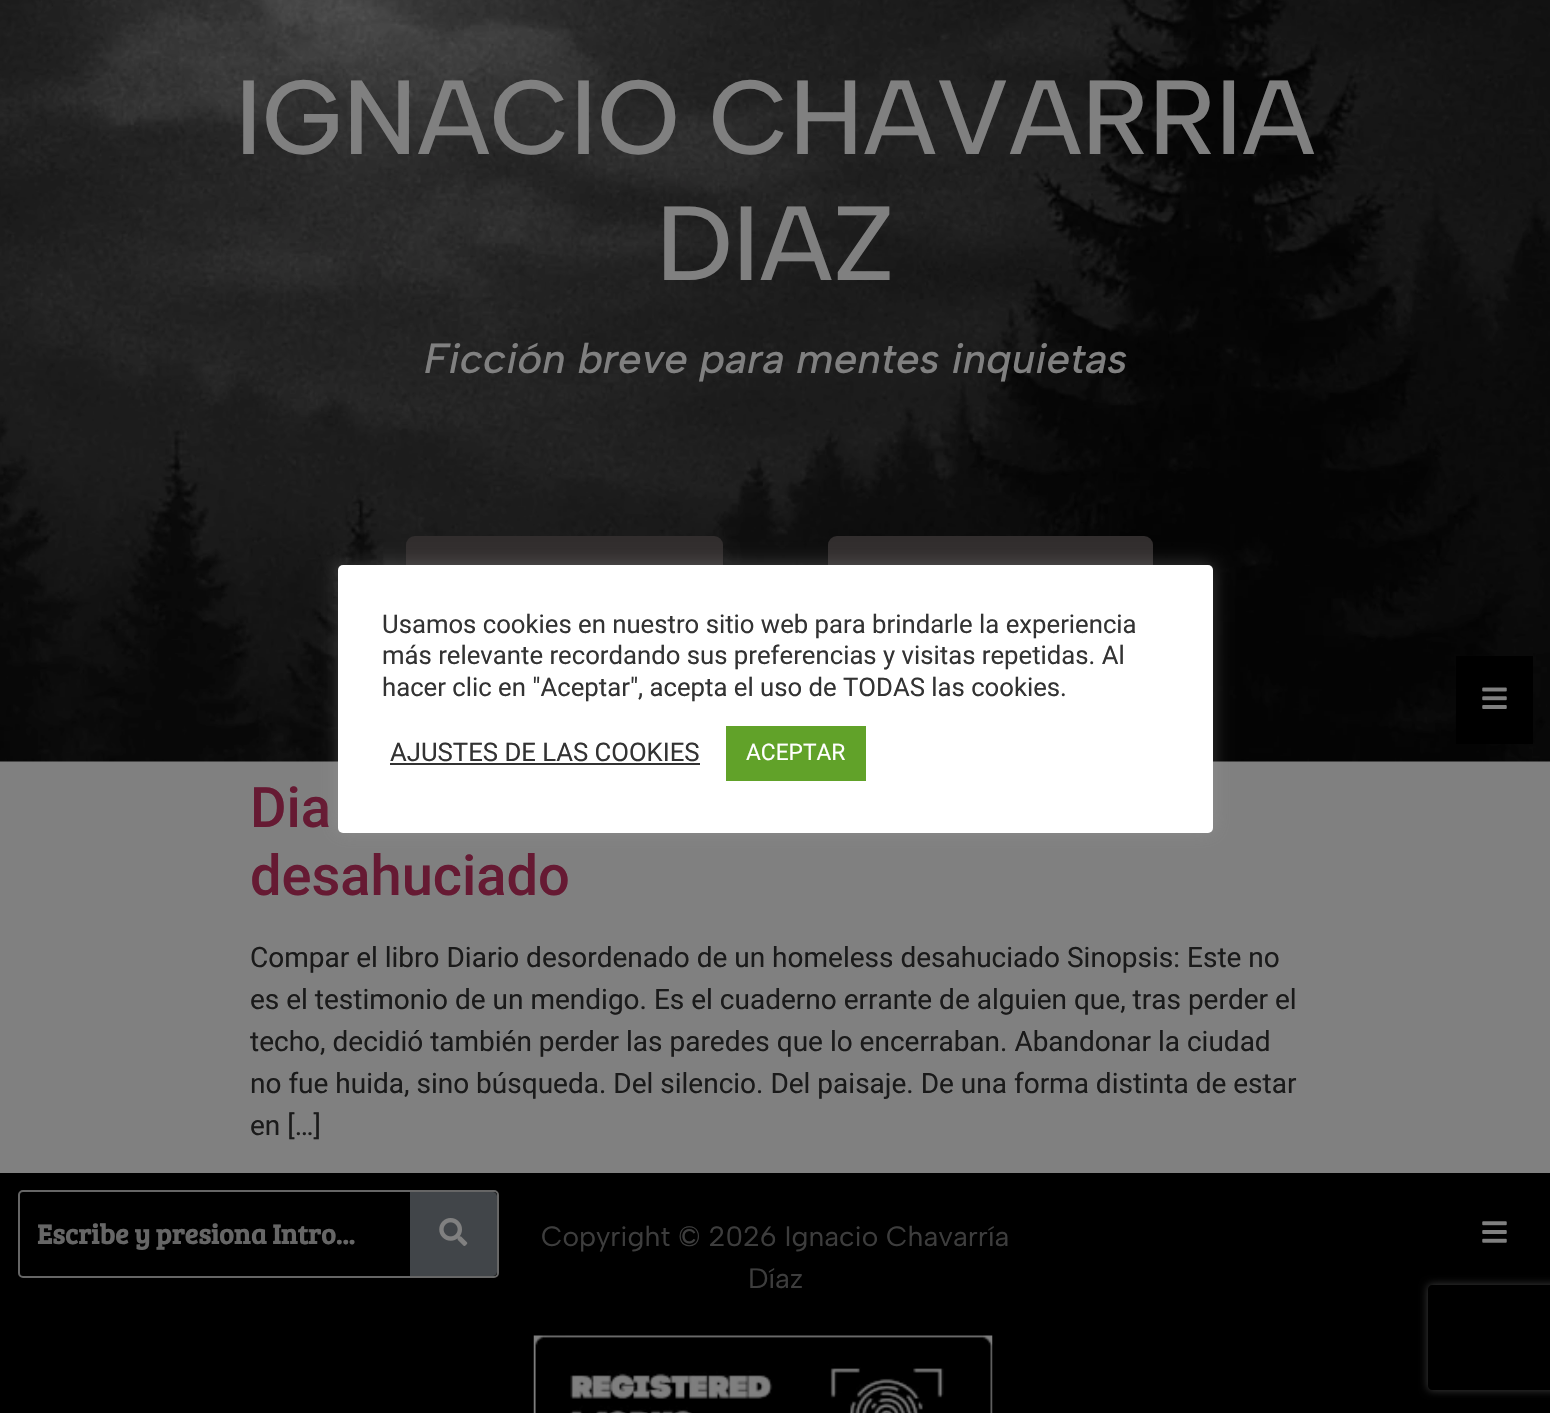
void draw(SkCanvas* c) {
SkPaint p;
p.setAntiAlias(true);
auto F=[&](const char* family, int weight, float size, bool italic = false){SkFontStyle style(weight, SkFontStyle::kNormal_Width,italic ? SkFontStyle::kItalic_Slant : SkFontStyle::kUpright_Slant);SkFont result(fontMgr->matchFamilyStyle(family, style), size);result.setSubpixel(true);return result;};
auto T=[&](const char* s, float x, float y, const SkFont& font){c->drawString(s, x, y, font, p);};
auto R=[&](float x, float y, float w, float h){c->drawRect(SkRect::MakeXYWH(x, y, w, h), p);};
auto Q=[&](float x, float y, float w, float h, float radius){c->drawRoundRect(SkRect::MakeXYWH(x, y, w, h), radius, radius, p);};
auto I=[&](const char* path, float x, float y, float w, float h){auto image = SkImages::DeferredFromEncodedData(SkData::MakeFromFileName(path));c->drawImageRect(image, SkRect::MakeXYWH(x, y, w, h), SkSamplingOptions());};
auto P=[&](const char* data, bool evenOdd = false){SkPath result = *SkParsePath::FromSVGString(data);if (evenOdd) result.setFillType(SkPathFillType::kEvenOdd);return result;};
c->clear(0xff808080);
I("1.png",0,0,1550,762);
auto f1 = F("Albert Sans",500,105);
p.setColor(0xff808080);
T("IGNACIO CHAVARRIA",235,154,f1);
T("DIAZ",656,280,f1);
auto f2 = F("Albert Sans",500,42,true);
T("Ficción breve para mentes inquietas",424,373,f2);
p.setColor(0xff312d2d);
Q(406,536,317,68,9);
Q(828,536,325,68,9);
p.setColor(0xff000000);
R(1456,656,77,88);
I("2.png",1482,687,25,22);
auto f3 = F("Roboto",500,56);
p.setColor(0xff661a33);
T("Dia",250,827,f3);
T("desahuciado",250,895,f3);
auto f4 = F("Roboto",400,28);
p.setColor(0xff1a1a1a);
T("Compar el libro Diario desordenado de un homeless desahuciado Sinopsis: Este no",250,967,f4);
T("es el testimonio de un mendigo. Es el cuaderno errante de alguien que, tras perder el",250,1009,f4);
T("techo, decidió también perder las paredes que lo encerraban. Abandonar la ciudad",250,1051,f4);
T("no fue huida, sino búsqueda. Del silencio. Del paisaje. De una forma distinta de estar",250,1093,f4);
T("en […]",250,1135,f4);
p.setColor(0xff000000);
R(0,1173,1550,240);
p.setStroke(true);
p.setStrokeWidth(2);
p.setColor(0xff666666);
c->drawRoundRect(SkRect::MakeXYWH(19,1191,479,86),4,4,p);
auto f5 = F("Bree Serif",700,28);
p.setStroke(false);
T("Escribe y presiona Intro...",37,1244,f5);
p.setColor(0xff414549);
c->drawPath(P("M410 1192h83c2 0 4 2 4 4v76c0 2-2 4-4 4h-83z"),p);
I("3.png",439,1218,29,28);
auto f6 = F("Albert Sans",400,28);
p.setColor(0xff3d3d3d);
T("Copyright © 2026 Ignacio Chavarría",541,1246,f6);
T("Díaz",748,1288,f6);
I("4.png",533,1335,460,78);
I("5.png",1482,1221,25,22);
p.setColor(0x4dacabab);
p.setMaskFilter(SkMaskFilter::MakeBlur(kNormal_SkBlurStyle, 9));
c->drawRoundRect(SkRect::MakeXYWH(338,564,875,267),5,5,p);
p.setMaskFilter(nullptr);
p.setColor(0xffffffff);
Q(338,565,875,268,5);
auto f7 = F("Roboto",400,25.7);
p.setColor(0xff333333);
T("Usamos cookies en nuestro sitio web para brindarle la experiencia",382,633,f7);
T("más relevante recordando sus preferencias y visitas repetidas. Al",382,664,f7);
T("hacer clic en \"Aceptar\", acepta el uso de TODAS las cookies.",382,696,f7);
T("AJUSTES DE LAS COOKIES",390,761,f7);
R(390,763,310,2);
p.setColor(0xff61a229);
R(726,726,140,55);
auto f8 = F("Roboto",400,22.75);
p.setColor(0xffffffff);
T("ACEPTAR",746,760,f8);
c->save();
c->clipPath(P("M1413 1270h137v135h-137zm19 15h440c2 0 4 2 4 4v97c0 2-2 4-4 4h-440c-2 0-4-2-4-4v-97c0-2 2-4 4-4z",true),true);
p.setColor(0xff404040);
p.setMaskFilter(SkMaskFilter::MakeBlur(kNormal_SkBlurStyle, 4.5));
c->drawRoundRect(SkRect::MakeXYWH(1428,1285,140,105),4,4,p);
p.setMaskFilter(nullptr);
c->restore();
}
